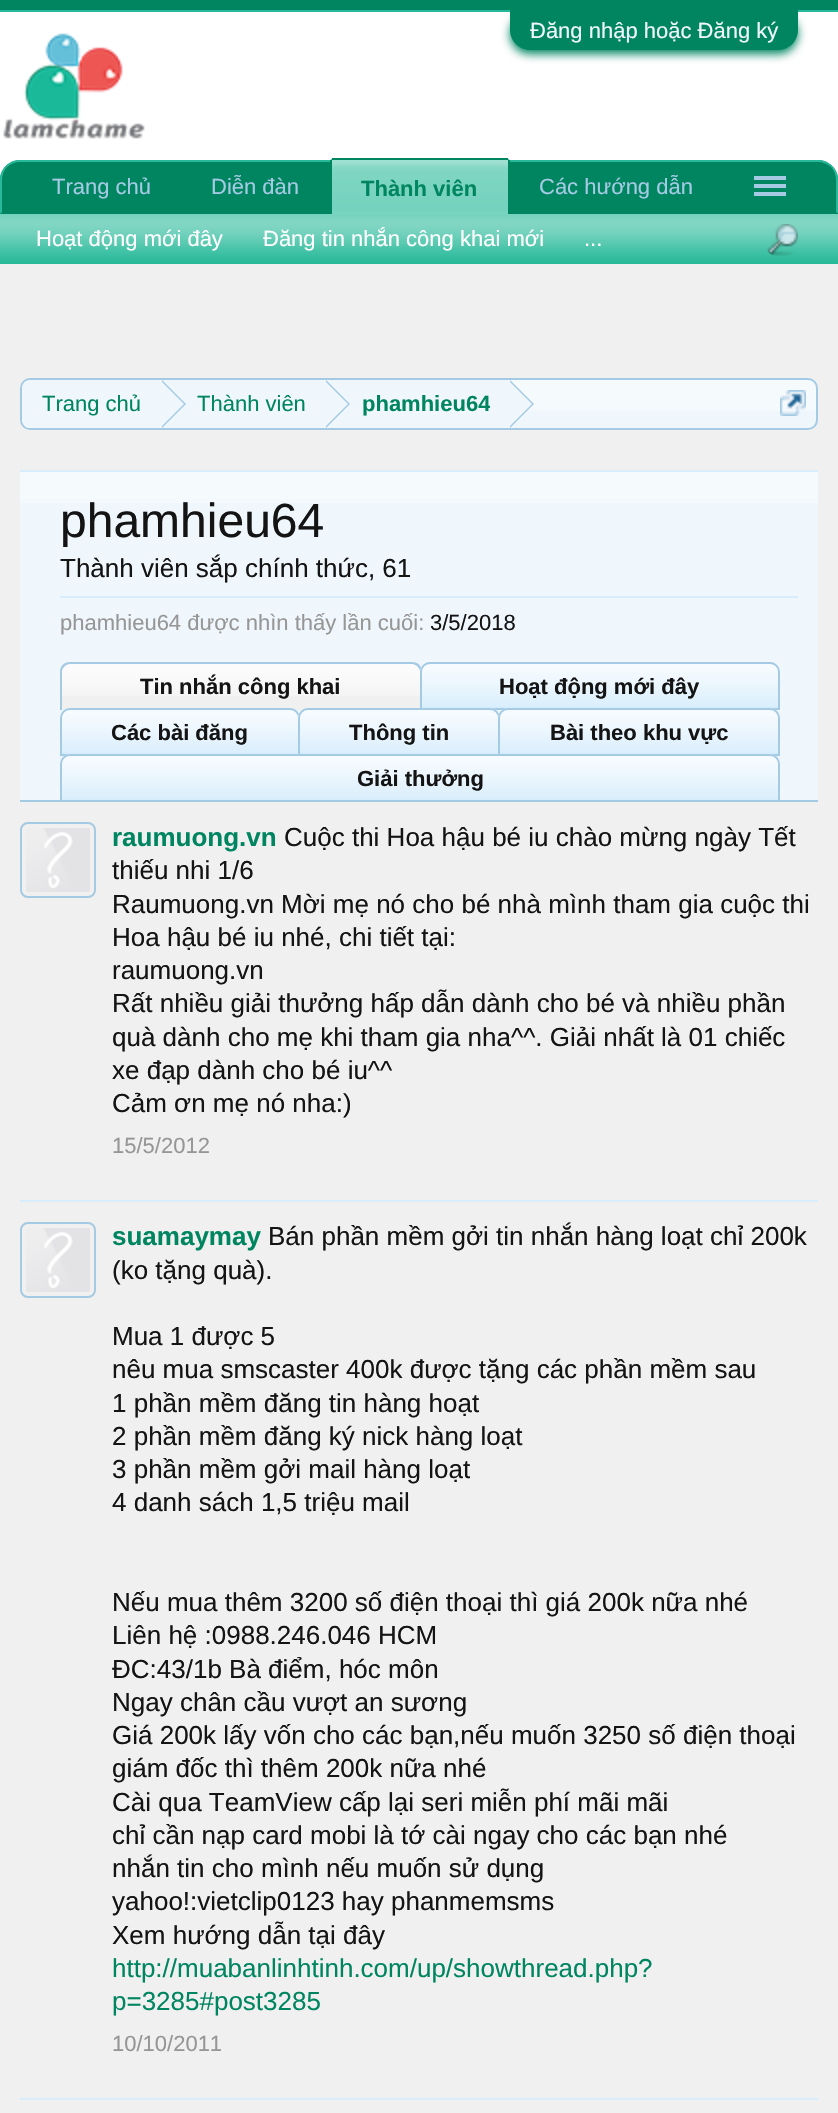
void draw(SkCanvas* c) {
SkPaint p;
p.setAntiAlias(true);
auto F=[&](const char* family, int weight, float size, bool italic = false){SkFontStyle style(weight, SkFontStyle::kNormal_Width,italic ? SkFontStyle::kItalic_Slant : SkFontStyle::kUpright_Slant);SkFont result(fontMgr->matchFamilyStyle(family, style), size);result.setSubpixel(true);return result;};
auto T=[&](const char* s, float x, float y, const SkFont& font){c->drawString(s, x, y, font, p);};
auto R=[&](float x, float y, float w, float h){c->drawRect(SkRect::MakeXYWH(x, y, w, h), p);};
auto Q=[&](float x, float y, float w, float h, float radius){c->drawRoundRect(SkRect::MakeXYWH(x, y, w, h), radius, radius, p);};
auto I=[&](const char* path, float x, float y, float w, float h){auto image = SkImages::DeferredFromEncodedData(SkData::MakeFromFileName(path));c->drawImageRect(image, SkRect::MakeXYWH(x, y, w, h), SkSamplingOptions());};
auto P=[&](const char* data, bool evenOdd = false){SkPath result = *SkParsePath::FromSVGString(data);if (evenOdd) result.setFillType(SkPathFillType::kEvenOdd);return result;};
c->clear(0xffffffff);
p.setColor(0xff008561);
R(0,0,838,10);
p.setColor(0xff27b999);
R(0,10,838,2);
p.setColor(0xff008561);
p.setMaskFilter(SkMaskFilter::MakeBlur(kNormal_SkBlurStyle, 5));
c->drawRoundRect(SkRect::MakeXYWH(510,14,288,40),20,20,p);
p.setMaskFilter(nullptr);
c->drawPath(P("M510 10h288v20c0 11-9 20-20 20h-248c-11 0-20-9-20-20z"),p);
auto f1 = F("Liberation Sans",400,22);
p.setColor(0xfff0f7fc);
T("Đăng nhập hoặc Đăng ký",530,38,f1);
I("1.png",3,33,142,106);
p.setColor(0xff008561);
c->drawPath(P("M20 160h798c11 0 20 9 20 20v34h-838v-34c0-11 9-20 20-20z"),p);
p.setColor(0xff27b999);
c->drawPath(P("M20 160c-6 0-10 2-14 6l1 1c3-3 8-5 13-5h798c5 0 10 2 13 5l1-1c-4-4-8-6-14-6z"),p);
c->drawPath(P("M838 214v-34c0-6-2-10-6-14l-1 1c3 3 5 8 5 13v32z"),p);
p.setColor(0xff008561);
c->drawPath(P("M838 214l-2-2h-834l-2 2z"),p);
p.setColor(0xff27b999);
c->drawPath(P("M0 214l2-2v-32c0-5 2-10 5-13l-1-1c-4 4-6 8-6 14z"),p);
p.setColor(0xffa5cae4);
T("Trang chủ",52,194,f1);
T("Diễn đàn",211,194,f1);
T("Các hướng dẫn",539,194,f1);
R(754,176,32,4);
R(754,184,32,4);
R(754,192,32,4);
p.setColor(0xff27b999);
c->drawPath(P("M334 158h172c2 0 4 2 4 4v52h-180v-52c0-2 2-4 4-4z"),p);
I("2.png",332,160,176,54);
p.setColor(0xff008561);
R(332,158,176,2);
R(508,160,2,54);
R(330,160,2,54);
auto f2 = F("Liberation Sans",700,22);
T("Thành viên",361,196,f2);
p.setColor(0xff27b999);
R(0,214,838,50);
I("3.png",0,214,838,48);
p.setColor(0xffffffff);
T("Hoạt động mới đây",36,246,f1);
T("Đăng tin nhắn công khai mới",263,246,f1);
T("...",584,246,f1);
I("4.png",767,224,31,32);
p.setColor(0xfff0f0f0);
R(0,264,838,1849);
p.setColor(0xfff0f7fc);
Q(20,378,798,52,10);
I("5.png",20,380,798,31);
p.setStroke(true);
p.setStrokeWidth(2);
p.setColor(0xffa5cae4);
c->drawRoundRect(SkRect::MakeXYWH(21,379,796,50),9,9,p);
c->save();
c->clipPath(P("M30 380h778c4.5 0 8 3.5 8 8v32c0 4.5-3.5 8-8 8h-778c-4.5 0-8-3.5-8-8v-32c0-4.5 3.5-8 8-8z"),true);
p.setStroke(false);
p.setColor(0xfff0f7fc);
c->drawPath(P("M32 380h130v50h-130c-5.5 0-10-4.5-10-10v-30c0-5.5 4.5-10 10-10z"),p);
c->restore();
p.setColor(0xff008561);
T("Trang chủ",42,411,f1);
p.setColor(0xfff0f7fc);
R(162,380,348,31);
p.setColor(0xffa5cae4);
c->drawPath(P("M162 428v-48l24 24z"),p);
p.setColor(0xfff0f7fc);
c->drawPath(P("M160 428v-48l24 24z"),p);
p.setColor(0xff008561);
T("Thành viên",197,411,f1);
p.setColor(0xffa5cae4);
c->drawPath(P("M326 428v-48l24 24z"),p);
p.setColor(0xfff0f7fc);
c->drawPath(P("M324 428v-48l24 24z"),p);
c->save();
c->clipRect(SkRect::MakeXYWH(362,380,128,48));
p.setColor(0xff008561);
T("phamhieu64",362,411,f2);
c->restore();
p.setColor(0xffa5cae4);
c->drawPath(P("M510 428v-48l24 24z"),p);
p.setColor(0xfff0f7fc);
c->drawPath(P("M508 428v-48l24 24z"),p);
I("6.png",780,390,26,26);
p.setColor(0xffd7edfc);
R(20,470,798,2);
p.setColor(0xfff0f7fc);
R(20,472,798,328);
I("7.png",20,472,798,31);
auto f3 = F("Liberation Sans",400,48);
p.setColor(0xff141414);
T("phamhieu64",60,537,f3);
auto f4 = F("Liberation Sans",400,26);
T("Thành viên sắp chính thức, 61",60,577,f4);
p.setColor(0xffd7edfc);
R(60,596,738,2);
p.setColor(0xff969696);
T("phamhieu64 được nhìn thấy lần cuối:",60,630,f1);
p.setColor(0xff141414);
T("3/5/2018",430,630,f1);
p.setColor(0xffa5cae4);
R(20,800,798,2);
p.setColor(0xfff0f0f0);
c->drawPath(P("M70 662h342c5.5 0 10 4.5 10 10v38h-362v-38c0-5.5 4.5-10 10-10z"),p);
I("8.png",60,664,361,32);
p.setColor(0xffa5cae4);
c->drawPath(P("M70 662h342c6 0 10 4 10 10v38h-362v-38c0-6 4-10 10-10zm0 2h342c4 0 8 4 8 8v38h-358v-38c0-4 4-8 8-8z",true),p);
p.setColor(0xff141414);
T("Tin nhắn công khai",140,694,f2);
p.setColor(0xffd7edfc);
c->drawPath(P("M430 662h340c5.5 0 10 4.5 10 10v38h-360v-38c0-5.5 4.5-10 10-10z"),p);
I("9.png",420,664,360,42);
p.setStroke(true);
p.setColor(0xffa5cae4);
c->drawPath(P("M430 663h340c5 0 9 4 9 9v37h-358v-37c0-5 4-9 9-9z"),p);
p.setStroke(false);
p.setColor(0xff141414);
T("Hoạt động mới đây",499,694,f2);
p.setColor(0xffd7edfc);
c->drawPath(P("M70 708h220c5.5 0 10 4.5 10 10v38h-240v-38c0-5.5 4.5-10 10-10z"),p);
I("10.png",60,710,239,42);
p.setStroke(true);
p.setColor(0xffa5cae4);
c->drawPath(P("M70 709h220c5 0 9 4 9 9v37h-238v-37c0-5 4-9 9-9z"),p);
p.setStroke(false);
p.setColor(0xff141414);
T("Các bài đăng",111,740,f2);
p.setColor(0xffd7edfc);
c->drawPath(P("M308 708h182c5.5 0 10 4.5 10 10v38h-202v-38c0-5.5 4.5-10 10-10z"),p);
I("11.png",298,710,201,42);
p.setStroke(true);
p.setColor(0xffa5cae4);
c->drawPath(P("M308 709h182c5 0 9 4 9 9v37h-200v-37c0-5 4-9 9-9z"),p);
p.setStroke(false);
p.setColor(0xff141414);
T("Thông tin",349,740,f2);
p.setColor(0xffd7edfc);
c->drawPath(P("M508 708h262c5.5 0 10 4.5 10 10v38h-282v-38c0-5.5 4.5-10 10-10z"),p);
I("12.png",498,710,282,42);
p.setStroke(true);
p.setColor(0xffa5cae4);
c->drawPath(P("M508 709h262c5 0 9 4 9 9v37h-280v-37c0-5 4-9 9-9z"),p);
p.setStroke(false);
p.setColor(0xff141414);
T("Bài theo khu vực",550,740,f2);
p.setColor(0xffd7edfc);
c->drawPath(P("M70 754h700c5.5 0 10 4.5 10 10v38h-720v-38c0-5.5 4.5-10 10-10z"),p);
I("13.png",60,756,720,42);
p.setStroke(true);
p.setColor(0xffa5cae4);
c->drawPath(P("M70 755h700c5 0 9 4 9 9v37h-718v-37c0-5 4-9 9-9z"),p);
p.setStroke(false);
p.setColor(0xff141414);
T("Giải thưởng",357,786,f2);
p.setColor(0xffd7edfc);
R(20,1200,798,2);
p.setStroke(true);
p.setColor(0xffa5cae4);
c->drawRoundRect(SkRect::MakeXYWH(21,823,74,74),7,7,p);
I("14.png",26,828,64,64);
auto f5 = F("Liberation Sans",700,26);
p.setStroke(false);
p.setColor(0xff008561);
T("raumuong.vn",112,846,f5);
p.setColor(0xff141414);
T("Cuộc thi Hoa hậu bé iu chào mừng ngày Tết",284,846,f4);
T("thiếu nhi 1/6",112,879,f4);
T("Raumuong.vn Mời mẹ nó cho bé nhà mình tham gia cuộc thi",112,913,f4);
T("Hoa hậu bé iu nhé, chi tiết tại:",112,946,f4);
T("raumuong.vn",112,979,f4);
T("Rất nhiều giải thưởng hấp dẫn dành cho bé và nhiều phần",112,1012,f4);
T("quà dành cho mẹ khi tham gia nha^^. Giải nhất là 01 chiếc",112,1046,f4);
T("xe đạp dành cho bé iu^^",112,1079,f4);
T("Cảm ơn mẹ nó nha:)",112,1112,f4);
p.setColor(0xff969696);
T("15/5/2012",112,1153,f1);
p.setColor(0xffd7edfc);
R(20,2098,798,2);
p.setStroke(true);
p.setColor(0xffa5cae4);
c->drawRoundRect(SkRect::MakeXYWH(21,1223,74,74),7,7,p);
I("14.png",26,1228,64,64);
p.setStroke(false);
p.setColor(0xff008561);
T("suamaymay",112,1245,f5);
p.setColor(0xff141414);
T("Bán phần mềm gởi tin nhắn hàng loạt chỉ 200k",268,1245,f4);
T("(ko tặng quà).",112,1279,f4);
T("Mua 1 được 5",112,1345,f4);
T("nêu mua smscaster 400k được tặng các phần mềm sau",112,1378,f4);
T("1 phần mềm đăng tin hàng hoạt",112,1412,f4);
T("2 phần mềm đăng ký nick hàng loạt",112,1445,f4);
T("3 phần mềm gởi mail hàng loạt",112,1478,f4);
T("4 danh sách 1,5 triệu mail",112,1511,f4);
T("Nếu mua thêm 3200 số điện thoại thì giá 200k nữa nhé",112,1611,f4);
T("Liên hệ :0988.246.046 HCM",112,1644,f4);
T("ĐC:43/1b Bà điểm, hóc môn",112,1678,f4);
T("Ngay chân cầu vượt an sương",112,1711,f4);
T("Giá 200k lấy vốn cho các bạn,nếu muốn 3250 số điện thoại",112,1744,f4);
T("giám đốc thì thêm 200k nữa nhé",112,1777,f4);
T("Cài qua TeamView cấp lại seri miễn phí mãi mãi",112,1811,f4);
T("chỉ cần nạp card mobi là tớ cài ngay cho các bạn nhé",112,1844,f4);
T("nhắn tin cho mình nếu muốn sử dụng",112,1877,f4);
T("yahoo!:vietclip0123 hay phanmemsms",112,1910,f4);
T("Xem hướng dẫn tại đây",112,1944,f4);
p.setColor(0xff008561);
T("http://muabanlinhtinh.com/up/showthread.php?",112,1977,f4);
T("p=3285#post3285",112,2010,f4);
p.setColor(0xff969696);
T("10/10/2011",112,2051,f1);
}
